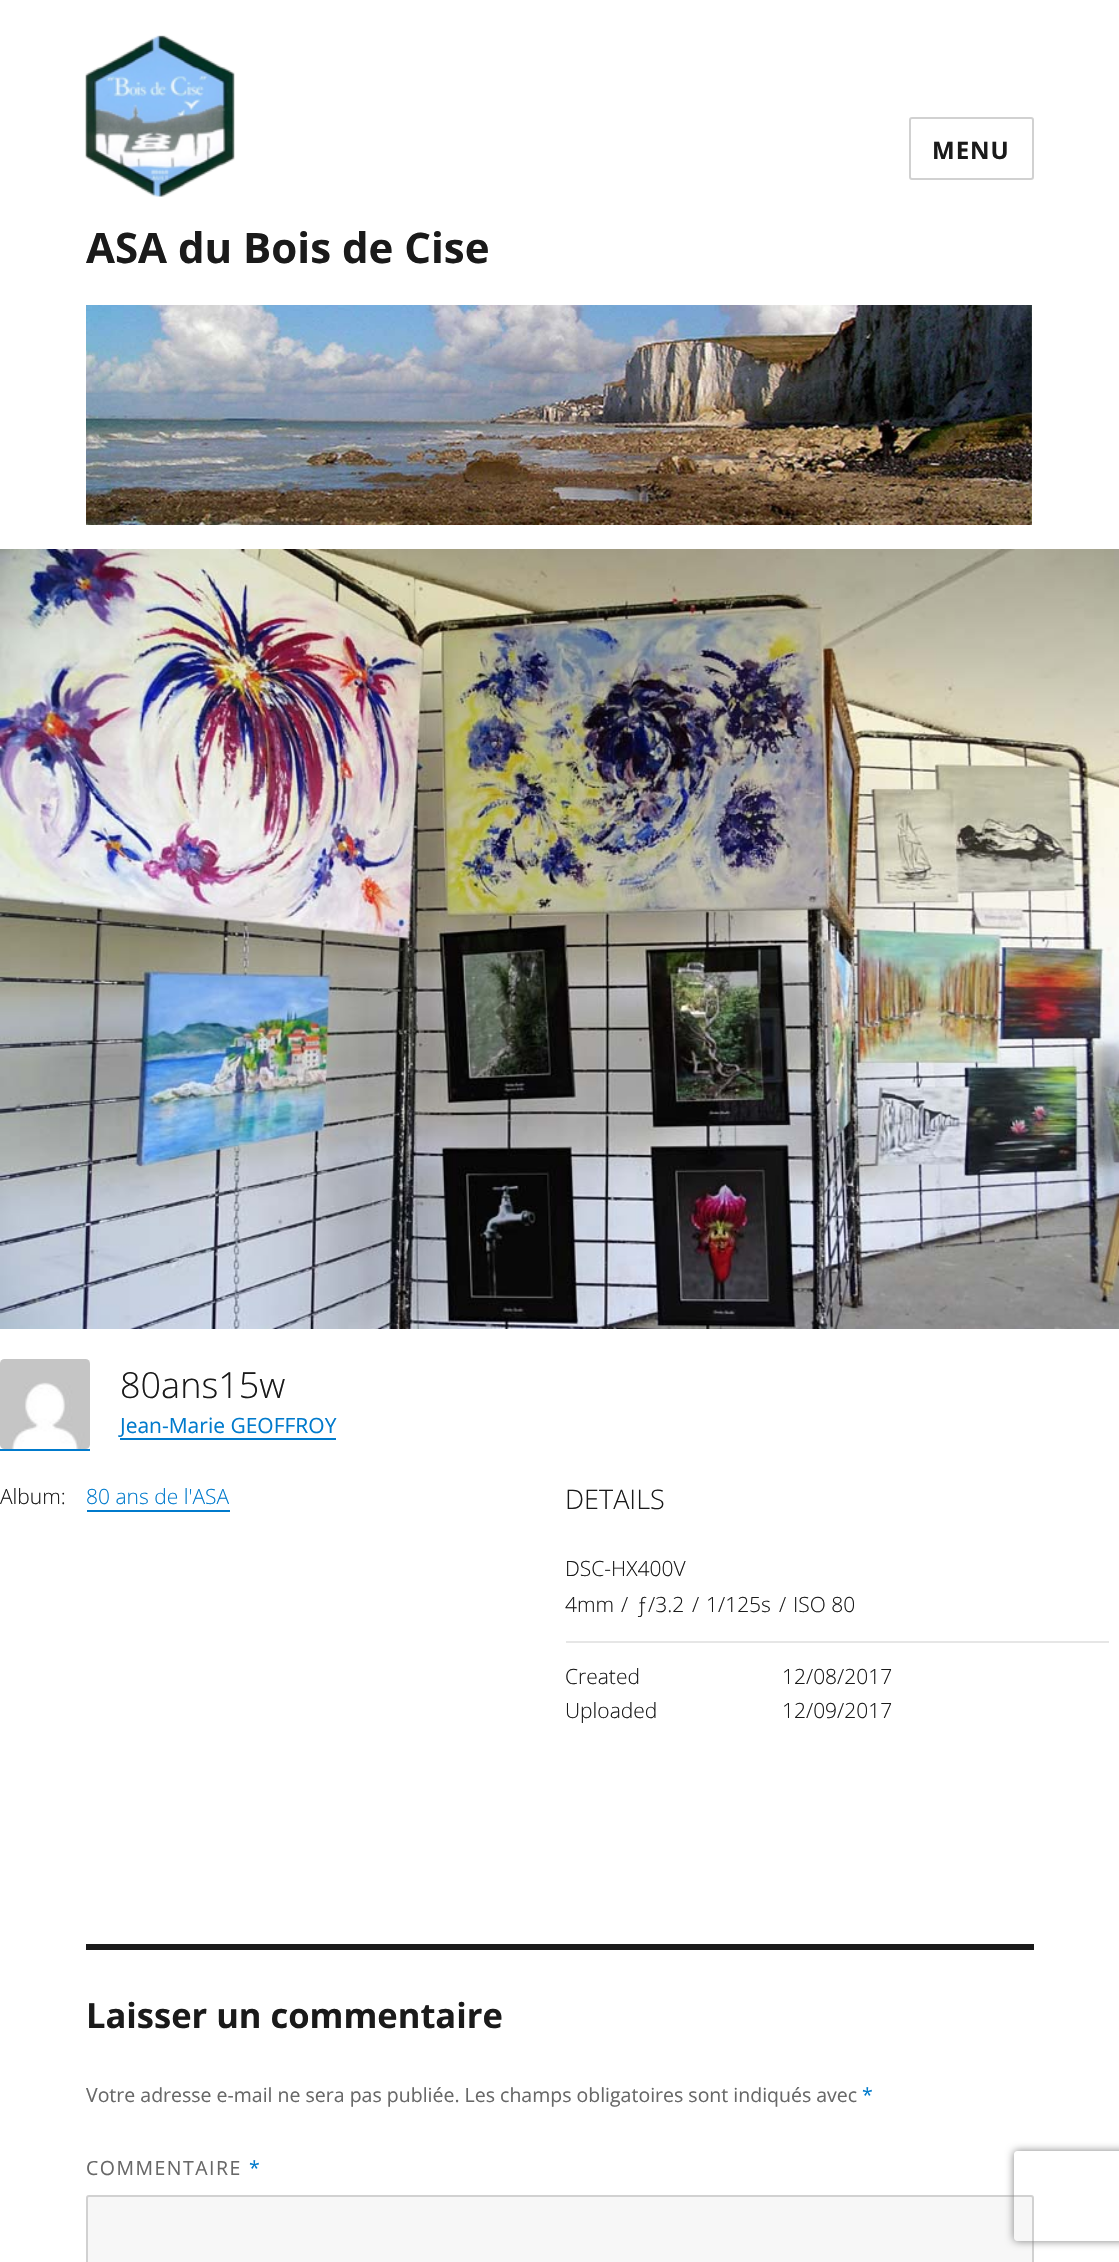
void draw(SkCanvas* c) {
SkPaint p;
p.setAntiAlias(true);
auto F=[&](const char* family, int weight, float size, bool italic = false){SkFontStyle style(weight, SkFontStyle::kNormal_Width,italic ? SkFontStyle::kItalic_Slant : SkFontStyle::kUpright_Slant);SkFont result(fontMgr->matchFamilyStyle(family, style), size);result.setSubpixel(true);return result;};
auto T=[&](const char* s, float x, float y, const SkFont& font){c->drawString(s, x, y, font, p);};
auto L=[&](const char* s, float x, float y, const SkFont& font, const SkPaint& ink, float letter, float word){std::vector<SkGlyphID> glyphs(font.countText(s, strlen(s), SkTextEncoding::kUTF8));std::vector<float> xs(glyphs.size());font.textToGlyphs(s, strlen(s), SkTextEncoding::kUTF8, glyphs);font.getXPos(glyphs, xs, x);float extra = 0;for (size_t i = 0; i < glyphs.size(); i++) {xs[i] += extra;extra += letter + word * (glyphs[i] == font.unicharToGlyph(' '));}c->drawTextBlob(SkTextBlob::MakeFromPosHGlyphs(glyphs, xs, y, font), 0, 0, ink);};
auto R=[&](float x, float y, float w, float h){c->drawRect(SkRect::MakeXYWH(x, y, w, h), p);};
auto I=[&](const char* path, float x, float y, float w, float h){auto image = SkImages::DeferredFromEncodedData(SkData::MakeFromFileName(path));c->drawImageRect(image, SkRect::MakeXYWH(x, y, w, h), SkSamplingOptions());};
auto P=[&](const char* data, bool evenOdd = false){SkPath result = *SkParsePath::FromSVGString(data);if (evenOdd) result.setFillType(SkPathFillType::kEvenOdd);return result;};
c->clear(0xffffffff);
p.setStroke(true);
p.setStrokeWidth(2);
p.setColor(0xffd1d1d1);
c->drawRoundRect(SkRect::MakeXYWH(910,118,123,61),2,2,p);
auto f1 = F("Open Sans",700,24);
p.setStroke(false);
p.setColor(0xff1a1a1a);
L("MENU",932,159,f1,p,1,0);
I("1.png",85,35,150,162);
auto f2 = F("Open Sans",700,42);
T("ASA du Bois de Cise",86,263,f2);
I("2.png",86,305,946,220);
I("3.png",0,549,1119,780);
p.setColor(0xff007acc);
R(0,1449,90,2);
I("4.png",0,1359,90,90);
auto f3 = F("Open Sans",300,36);
p.setColor(0xff1a1a1a);
T("80ans15w",120,1398,f3);
auto f4 = F("Open Sans",400,21);
p.setColor(0xff007acc);
T("Jean-Marie GEOFFROY",120,1433,f4);
R(120,1438,216,2);
auto f5 = F("Open Sans",300,21);
p.setColor(0xff1a1a1a);
T("Album:",0,1504,f5);
p.setColor(0xff007acc);
T("80 ans de l'ASA",86,1504,f5);
c->drawPath(P("M87 1510v2h143v-28v26z"),p);
auto f6 = F("Open Sans",300,27);
p.setColor(0xff1a1a1a);
T("DETAILS",565,1509,f6);
p.setColor(0xffe6e6e6);
R(566,1641,543,2);
p.setColor(0xff1a1a1a);
T("DSC-HX400V",565,1576,f5);
T("4mm",565,1612,f5);
T("/",621,1612,f5);
T("ƒ/3.2",636,1612,f5);
T("/",692,1612,f5);
T("1/125s",706,1612,f5);
T("/",779,1612,f5);
T("ISO 80",793,1612,f5);
T("Created",565,1684,f5);
T("12/08/2017",782,1684,f5);
T("Uploaded",565,1718,f5);
T("12/09/2017",782,1718,f5);
R(86,1944,948,6);
auto f7 = F("Open Sans",700,34.5);
T("Laisser un commentaire",86,2028,f7);
auto f8 = F("Open Sans",400,19.5);
p.setColor(0xff686868);
T("Votre adresse e-mail ne sera pas publiée. Les champs obligatoires sont indiqués avec",86,2102,f8);
p.setColor(0xff007acc);
T("*",862,2102,f8);
p.setColor(0xff686868);
L("COMMENTAIRE",86,2175,f8,p,1.5,0);
p.setColor(0xff007acc);
L("*",249,2175,f8,p,1.5,0);
p.setColor(0xfff7f7f7);
c->drawRoundRect(SkRect::MakeXYWH(87,2196,946,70),2,2,p);
p.setStroke(true);
p.setColor(0xffd1d1d1);
c->drawRoundRect(SkRect::MakeXYWH(87,2196,946,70),2,2,p);
c->save();
c->clipPath(P("M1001 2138h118v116h-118zm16 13h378c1.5 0 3 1.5 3 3v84c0 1.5-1.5 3-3 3h-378c-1.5 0-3-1.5-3-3v-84c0-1.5 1.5-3 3-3z",true),true);
p.setStroke(false);
p.setColor(0xff808080);
p.setMaskFilter(SkMaskFilter::MakeBlur(kNormal_SkBlurStyle, 4));
c->drawRoundRect(SkRect::MakeXYWH(1014,2151,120,90),3,3,p);
p.setMaskFilter(nullptr);
c->restore();
}
